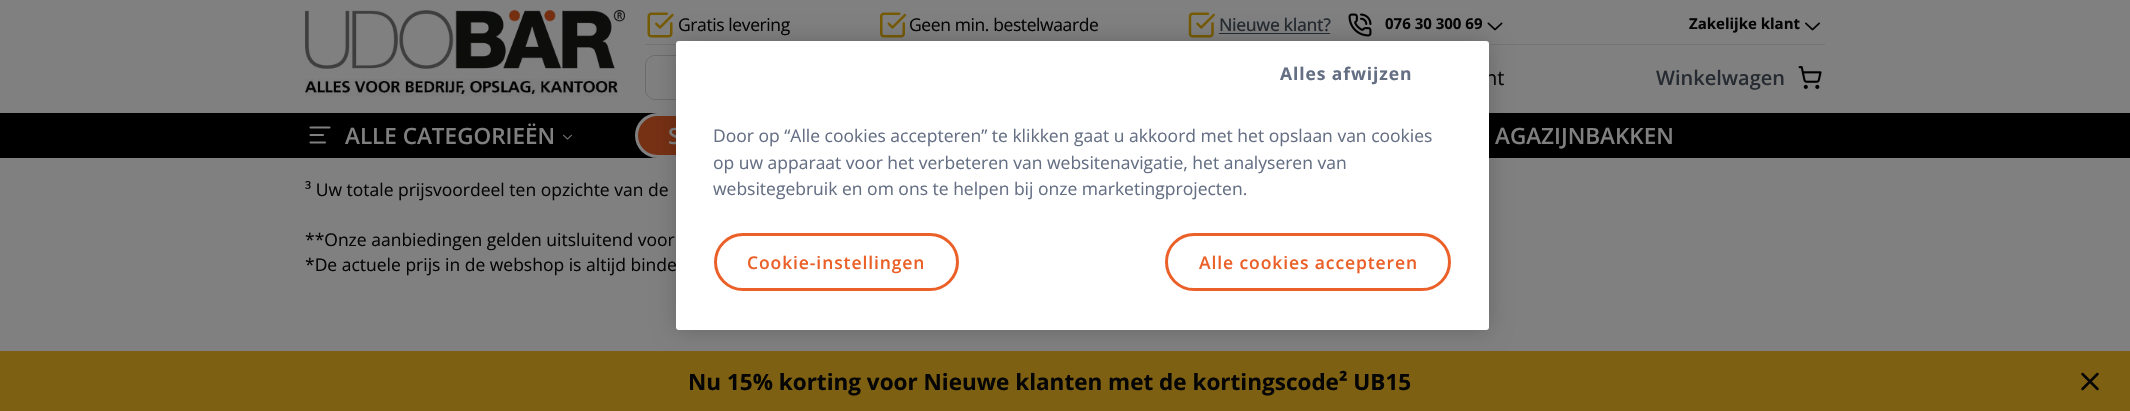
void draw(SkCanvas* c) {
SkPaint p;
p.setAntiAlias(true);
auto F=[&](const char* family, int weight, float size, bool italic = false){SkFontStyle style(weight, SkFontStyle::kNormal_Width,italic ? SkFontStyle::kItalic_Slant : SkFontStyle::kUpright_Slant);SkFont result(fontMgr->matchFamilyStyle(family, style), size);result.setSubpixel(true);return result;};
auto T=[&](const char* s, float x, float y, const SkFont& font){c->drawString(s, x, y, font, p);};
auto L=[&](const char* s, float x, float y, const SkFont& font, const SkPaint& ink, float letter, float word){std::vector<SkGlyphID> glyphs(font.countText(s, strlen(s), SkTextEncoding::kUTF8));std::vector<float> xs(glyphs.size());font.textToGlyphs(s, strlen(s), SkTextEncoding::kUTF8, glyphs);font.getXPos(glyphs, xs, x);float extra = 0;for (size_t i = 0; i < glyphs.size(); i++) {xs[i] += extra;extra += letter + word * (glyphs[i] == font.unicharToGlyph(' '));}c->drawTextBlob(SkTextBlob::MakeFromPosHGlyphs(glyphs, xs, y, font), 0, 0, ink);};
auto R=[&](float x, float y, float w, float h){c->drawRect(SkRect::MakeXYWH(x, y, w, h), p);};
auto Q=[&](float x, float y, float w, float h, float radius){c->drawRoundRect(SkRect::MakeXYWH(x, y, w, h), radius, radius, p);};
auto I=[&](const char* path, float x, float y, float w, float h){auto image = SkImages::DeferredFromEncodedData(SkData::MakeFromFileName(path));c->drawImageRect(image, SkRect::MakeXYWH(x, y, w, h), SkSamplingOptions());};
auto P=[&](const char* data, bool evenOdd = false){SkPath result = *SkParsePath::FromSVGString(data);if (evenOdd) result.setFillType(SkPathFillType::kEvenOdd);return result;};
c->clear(0xff808080);
I("1.png",305,10,320,59);
I("2.png",305,78,313,18);
p.setColor(0xff737476);
R(645,44,1180,1);
I("3.png",647,12,27,26);
auto f1 = F("Open Sans",400,17.5);
p.setColor(0xff050505);
L("Gratis levering",678,31,f1,p,-.4,0);
I("4.png",880,12,27,26);
L("Geen min. bestelwaarde",909,31,f1,p,-.4,0);
I("5.png",1188,12,27,26);
auto f2 = F("Open Sans",500,17.5);
p.setColor(0xff262b32);
L("Nieuwe klant?",1219,31,f2,p,-.4,0);
R(1219,33,111,1);
I("6.png",1348,13,24,24);
auto f3 = F("Open Sans",700,15);
p.setColor(0xff050505);
T("076 30 300 69",1385,29,f3);
I("7.png",1487,22,16,9);
T("Zakelijke klant",1689,29,f3);
I("8.png",1805,22,15,9);
p.setStroke(true);
p.setStrokeWidth(1);
p.setColor(0xff696b6e);
c->drawPath(P("M655 55.5h624.5v44h-624.5c-5 0-9.5-4.5-9.5-9.5v-25c0-5 4.5-9.5 9.5-9.5z"),p);
auto f4 = F("Open Sans",400,20);
p.setStroke(false);
p.setColor(0xff050505);
T("nt",1485,85,f4);
auto f5 = F("Open Sans",600,20);
p.setColor(0xff262b32);
T("Winkelwagen",1656,85,f5);
I("9.png",1798,66,24,23);
p.setColor(0xff000000);
R(0,113,2130,45);
p.setStroke(true);
p.setStrokeWidth(2.1);
p.setStrokeCap(SkPaint::kRound_Cap);
p.setStrokeJoin(SkPaint::kRound_Join);
p.setColor(0xff808080);
c->drawPath(P("M329.5 127.5h-19m12.5 7.5h-12.5m14.5 7.5h-14.5"),p);
auto f6 = F("Open Sans",600,22.5);
p.setStroke(false);
T("ALLE CATEGORIEËN",345,144,f6);
I("10.png",563,134,9,6);
p.setColor(0xff763014);
c->drawRoundRect(SkRect::MakeXYWH(636.5,114.5,273,42),21,21,p);
p.setStroke(true);
p.setStrokeWidth(3);
p.setStrokeCap(SkPaint::kButt_Cap);
p.setStrokeJoin(SkPaint::kMiter_Join);
p.setColor(0xff808080);
c->drawRoundRect(SkRect::MakeXYWH(636.5,114.5,273,42),21,21,p);
p.setStroke(false);
T("S",668,144,f6);
T("AGAZIJNBAKKEN",1495,144,f6);
p.setColor(0xff050505);
T("³ Uw totale prijsvoordeel ten opzichte van de",305,196,f1);
T("**Onze aanbiedingen gelden uitsluitend voor",305,246,f1);
T("*De actuele prijs in de webshop is altijd binde",305,271,f1);
p.setColor(0xff7e6012);
R(0,351,2130,60);
auto f7 = F("Open Sans",700,22.5);
p.setColor(0xff050505);
T("Nu 15% korting voor Nieuwe klanten met de kortingscode² UB15",688,390,f7);
p.setStroke(true);
p.setStrokeWidth(2.5);
p.setStrokeCap(SkPaint::kRound_Cap);
p.setStrokeJoin(SkPaint::kRound_Join);
c->drawPath(P("M2097.5 374l-15 15m0-15l15 15"),p);
p.setStroke(false);
p.setColor(0x33000000);
p.setMaskFilter(SkMaskFilter::MakeBlur(kNormal_SkBlurStyle, 11));
c->drawRoundRect(SkRect::MakeXYWH(676,41,813,289),3,3,p);
p.setMaskFilter(nullptr);
p.setColor(0xffffffff);
Q(676,41,813,289,3);
auto f8 = F("Open Sans",700,17.5);
p.setColor(0xff656f84);
L("Alles afwijzen",1280,80,f8,p,.9,0);
p.setStroke(true);
p.setStrokeWidth(3);
p.setStrokeCap(SkPaint::kButt_Cap);
p.setStrokeJoin(SkPaint::kMiter_Join);
p.setColor(0xffeb6028);
c->drawRoundRect(SkRect::MakeXYWH(715.5,234.5,242,55),27.5,27.5,p);
auto f9 = F("Open Sans",600,17.5);
p.setStroke(false);
L("Cookie-instellingen",747,269,f9,p,.9,0);
p.setStroke(true);
c->drawRoundRect(SkRect::MakeXYWH(1166.5,234.5,283,55),27.5,27.5,p);
p.setStroke(false);
L("Alle cookies accepteren",1199,269,f9,p,.9,0);
p.setColor(0xff656f84);
T("Door op “Alle cookies accepteren” te klikken gaat u akkoord met het opslaan van cookies",713,142,f1);
T("op uw apparaat voor het verbeteren van websitenavigatie, het analyseren van",713,169,f1);
T("websitegebruik en om ons te helpen bij onze marketingprojecten.",713,195,f1);
}
